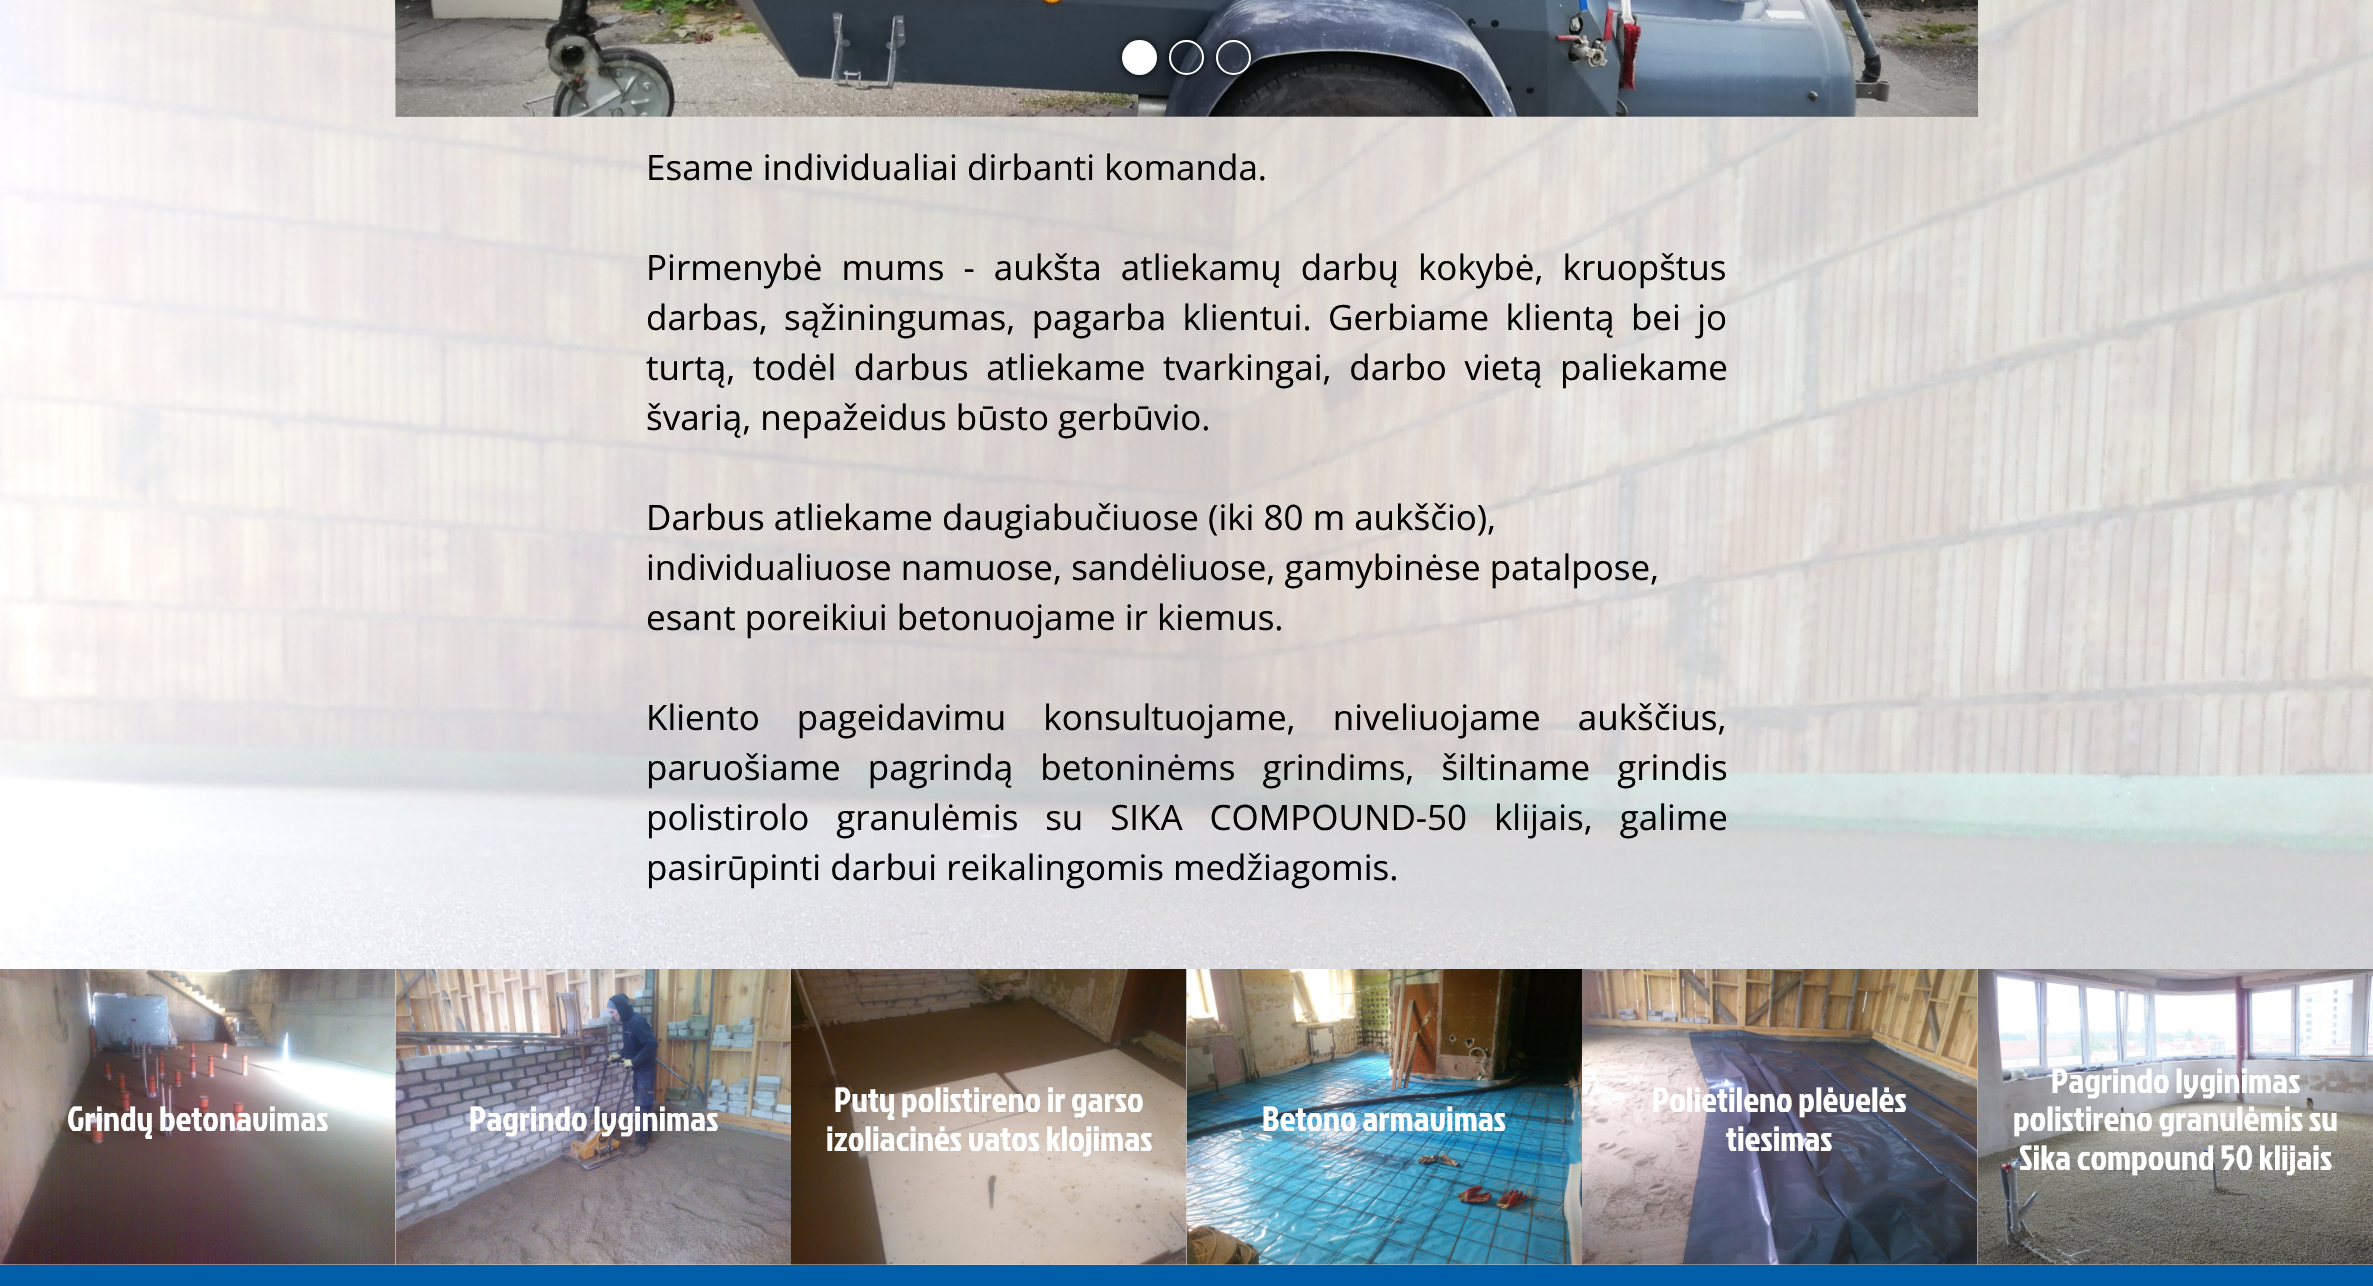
void draw(SkCanvas* c) {
SkPaint p;
p.setAntiAlias(true);
auto F=[&](const char* family, int weight, float size, bool italic = false){SkFontStyle style(weight, SkFontStyle::kNormal_Width,italic ? SkFontStyle::kItalic_Slant : SkFontStyle::kUpright_Slant);SkFont result(fontMgr->matchFamilyStyle(family, style), size);result.setSubpixel(true);return result;};
auto T=[&](const char* s, float x, float y, const SkFont& font){c->drawString(s, x, y, font, p);};
auto L=[&](const char* s, float x, float y, const SkFont& font, const SkPaint& ink, float letter, float word){std::vector<SkGlyphID> glyphs(font.countText(s, strlen(s), SkTextEncoding::kUTF8));std::vector<float> xs(glyphs.size());font.textToGlyphs(s, strlen(s), SkTextEncoding::kUTF8, glyphs);font.getXPos(glyphs, xs, x);float extra = 0;for (size_t i = 0; i < glyphs.size(); i++) {xs[i] += extra;extra += letter + word * (glyphs[i] == font.unicharToGlyph(' '));}c->drawTextBlob(SkTextBlob::MakeFromPosHGlyphs(glyphs, xs, y, font), 0, 0, ink);};
auto R=[&](float x, float y, float w, float h){c->drawRect(SkRect::MakeXYWH(x, y, w, h), p);};
auto I=[&](const char* path, float x, float y, float w, float h){auto image = SkImages::DeferredFromEncodedData(SkData::MakeFromFileName(path));c->drawImageRect(image, SkRect::MakeXYWH(x, y, w, h), SkSamplingOptions());};
auto P=[&](const char* data, bool evenOdd = false){SkPath result = *SkParsePath::FromSVGString(data);if (evenOdd) result.setFillType(SkPathFillType::kEvenOdd);return result;};
c->clear(0xffffffff);
I("1.png",2372,0,1,1265);
I("2.png",0,0,2373,1265);
I("3.png",395,0,1583,117);
{
const SkColor colors[] = {0x40000000,0x00000000};
const float stops[] = {0,1};
const SkPoint ends[] = {{396,-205}, {634,-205}};
p.setShader(SkGradientShader::MakeLinear(ends, colors, stops, 2, SkTileMode::kClamp));
p.setAlpha(255);
}
R(396,0,217,117);
p.setShader(nullptr);
p.setColor(0xff000000);
p.setMaskFilter(SkMaskFilter::MakeBlur(kNormal_SkBlurStyle, 4.5));
c->drawRoundRect(SkRect::MakeXYWH(1122,40,35,35),17.5,17.5,p);
p.setMaskFilter(nullptr);
p.setColor(0xffffffff);
c->drawCircle(1139.5,57.5,17.5,p);
c->save();
c->clipPath(P("M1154 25h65v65h-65zm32.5 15c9.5 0 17.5 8 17.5 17.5c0 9.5-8 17.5-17.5 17.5c-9.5 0-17.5-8-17.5-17.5c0-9.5 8-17.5 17.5-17.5z",true),true);
p.setColor(0xff000000);
p.setMaskFilter(SkMaskFilter::MakeBlur(kNormal_SkBlurStyle, 4.5));
c->drawRoundRect(SkRect::MakeXYWH(1169,40,35,35),17.5,17.5,p);
p.setMaskFilter(nullptr);
c->restore();
p.setStroke(true);
p.setStrokeWidth(2);
p.setColor(0xffffffff);
c->drawCircle(1186.5,57.5,16.5,p);
c->save();
c->clipPath(P("M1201 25h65v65h-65zm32.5 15c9.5 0 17.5 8 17.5 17.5c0 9.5-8 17.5-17.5 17.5c-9.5 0-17.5-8-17.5-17.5c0-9.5 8-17.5 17.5-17.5z",true),true);
p.setStroke(false);
p.setColor(0xff000000);
p.setMaskFilter(SkMaskFilter::MakeBlur(kNormal_SkBlurStyle, 4.5));
c->drawRoundRect(SkRect::MakeXYWH(1216,40,35,35),17.5,17.5,p);
p.setMaskFilter(nullptr);
c->restore();
p.setStroke(true);
p.setColor(0xffffffff);
c->drawCircle(1233.5,57.5,16.5,p);
p.setStroke(false);
{
const SkColor colors[] = {0x00000000,0x40000000};
const float stops[] = {0,1};
const SkPoint ends[] = {{1740,-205}, {1978,-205}};
p.setShader(SkGradientShader::MakeLinear(ends, colors, stops, 2, SkTileMode::kClamp));
p.setAlpha(255);
}
R(1761,0,217,117);
auto f1 = F("Open Sans",400,35);
p.setShader(nullptr);
p.setColor(0xff000000);
T("Esame individualiai dirbanti komanda.",646,180,f1);
L("Pirmenybė mums - aukšta atliekamų darbų kokybė, kruopštus",646,280,f1,p,0,10);
L("darbas, sąžiningumas, pagarba klientui. Gerbiame klientą bei jo",646,330,f1,p,0,7.25);
L("turtą, todėl darbus atliekame tvarkingai, darbo vietą paliekame",646,380,f1,p,0,8.5);
T("švarią, nepažeidus būsto gerbūvio.",646,430,f1);
T("Darbus atliekame daugiabučiuose (iki 80 m aukščio),",646,530,f1);
T("individualiuose namuose, sandėliuose, gamybinėse patalpose,",646,580,f1);
T("esant poreikiui betonuojame ir kiemus.",646,630,f1);
L("Kliento pageidavimu konsultuojame, niveliuojame aukščius,",646,730,f1,p,0,28);
L("paruošiame pagrindą betoninėms grindims, šiltiname grindis",646,780,f1,p,0,18);
L("polistirolo granulėmis su SIKA COMPOUND-50 klijais, galime",646,830,f1,p,0,17.75);
T("pasirūpinti darbui reikalingomis medžiagomis.",646,880,f1);
I("4.png",0,969,396,296);
auto f2 = F("Jockey One",400,35);
p.setColor(0xffffffff);
T("Grindų betonavimas",67,1131,f2);
I("5.png",395,969,396,296);
T("Pagrindo lyginimas",469,1131,f2);
I("6.png",791,969,396,296);
T("Putų polistireno ir garso",834,1112,f2);
T("izoliacinės vatos klojimas",826,1151,f2);
I("7.png",1186,969,396,296);
T("Betono armavimas",1262,1131,f2);
I("8.png",1582,969,396,296);
T("Polietileno plėvelės",1652,1112,f2);
T("tiesimas",1726,1151,f2);
I("9.png",1977,969,396,296);
T("Pagrindo lyginimas",2051,1093,f2);
T("polistireno granulėmis su",2013,1131,f2);
T("Sika compound 50 klijais",2019,1170,f2);
p.setColor(0xff005fa8);
R(0,1265,2373,21);
}
